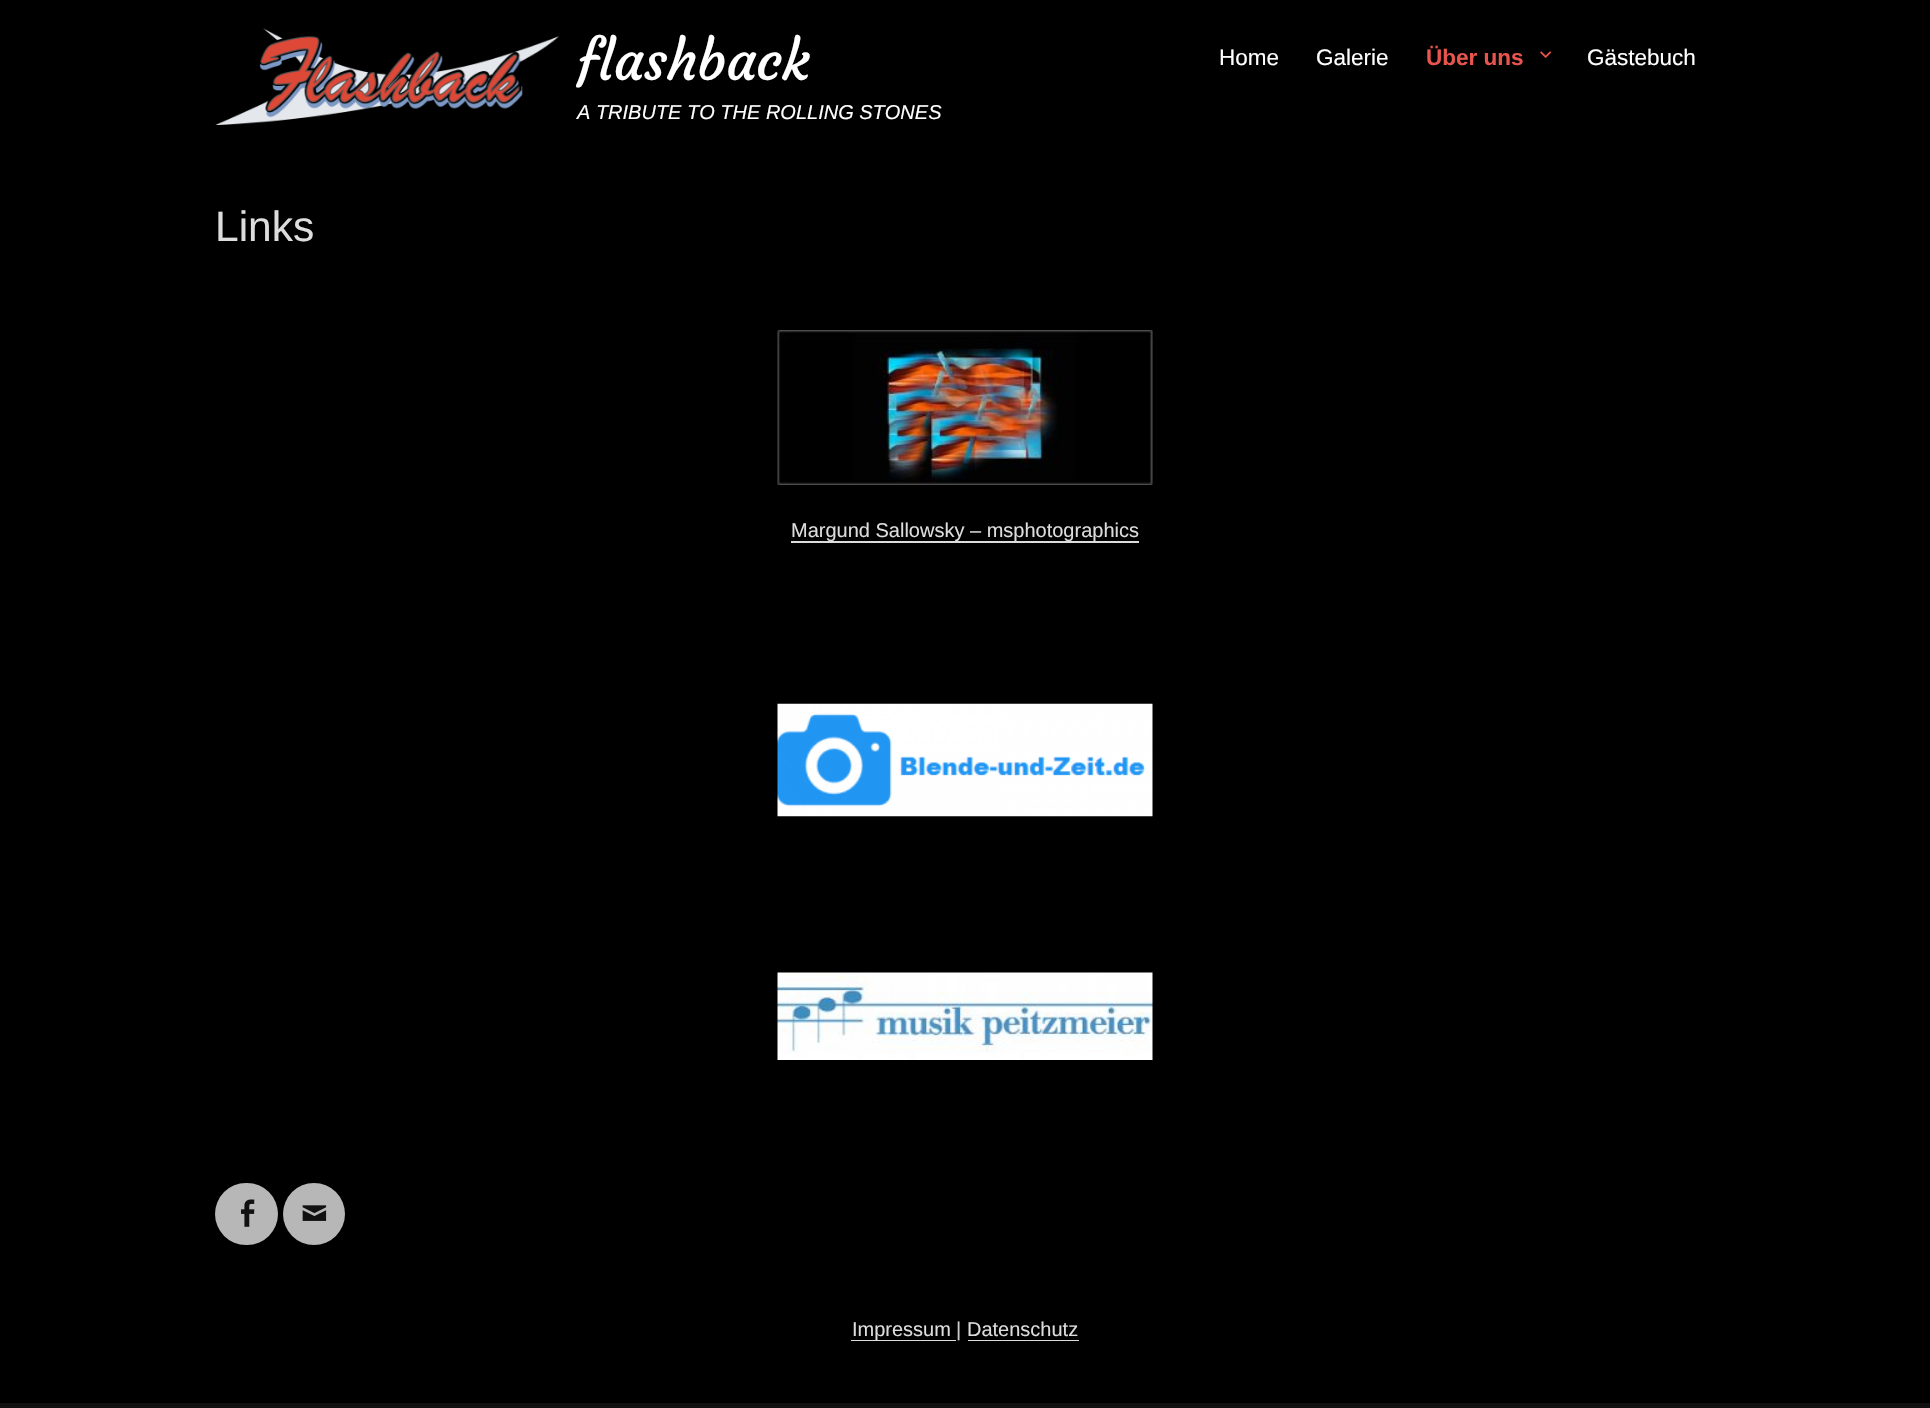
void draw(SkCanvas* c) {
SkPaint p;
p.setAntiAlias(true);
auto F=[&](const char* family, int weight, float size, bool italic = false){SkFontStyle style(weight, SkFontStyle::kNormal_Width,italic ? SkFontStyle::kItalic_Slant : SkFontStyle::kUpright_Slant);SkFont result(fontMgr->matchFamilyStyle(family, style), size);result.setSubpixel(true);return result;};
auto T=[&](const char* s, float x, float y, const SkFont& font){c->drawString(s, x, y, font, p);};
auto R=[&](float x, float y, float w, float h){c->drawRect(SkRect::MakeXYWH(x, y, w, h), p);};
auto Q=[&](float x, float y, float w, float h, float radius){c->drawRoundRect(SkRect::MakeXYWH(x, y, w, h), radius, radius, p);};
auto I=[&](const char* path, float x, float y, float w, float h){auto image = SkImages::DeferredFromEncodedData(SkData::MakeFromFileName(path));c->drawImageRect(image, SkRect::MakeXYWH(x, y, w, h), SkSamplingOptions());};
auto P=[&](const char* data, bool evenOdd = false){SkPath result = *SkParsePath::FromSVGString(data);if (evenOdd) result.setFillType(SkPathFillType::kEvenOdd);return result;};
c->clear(0xff000000);
I("1.png",215,28,344,97);
auto f1 = F("Courgette",400,55);
p.setColor(0xffffffff);
T("flashback",577,80,f1);
auto f2 = F("Liberation Sans",400,20,true);
T("A TRIBUTE TO THE ROLLING STONES",577,119,f2);
auto f3 = F("Liberation Sans",400,22.5);
T("Home",1219,65,f3);
T("Galerie",1316,65,f3);
auto f4 = F("Liberation Sans",700,22.5);
p.setColor(0xffe8554e);
T("Über uns",1426,65,f4);
I("2.png",1540,51,12,7);
p.setColor(0xffffffff);
T("Gästebuch",1587,65,f3);
auto f5 = F("Liberation Sans",400,42.5);
p.setColor(0xffdddddd);
T("Links",215,241,f5);
c->drawPath(P("M791 521v22h348v-22v20h-348z"),p);
I("3.png",777,330,376,155);
auto f6 = F("Liberation Sans",400,20);
T("Margund Sallowsky – msphotographics",791,537,f6);
I("4.png",777,703,376,114);
I("5.png",777,972,376,88);
p.setColor(0xffb7b7b7);
Q(215,1183,63,62,31);
I("6.png",241,1199,14,28);
c->drawCircle(314,1214,31,p);
I("7.png",302,1205,25,16);
p.setColor(0xffdddddd);
c->drawPath(P("M851 1320v21h105v-1h-105z"),p);
T("Impressum",852,1336,f6);
p.setColor(0xffcccccc);
T("|",956,1336,f6);
p.setColor(0xffdddddd);
T("Datenschutz",967,1336,f6);
c->drawPath(P("M968 1340v1h111v-21v20z"),p);
p.setColor(0xff111111);
R(0,1403,1930,5);
}
